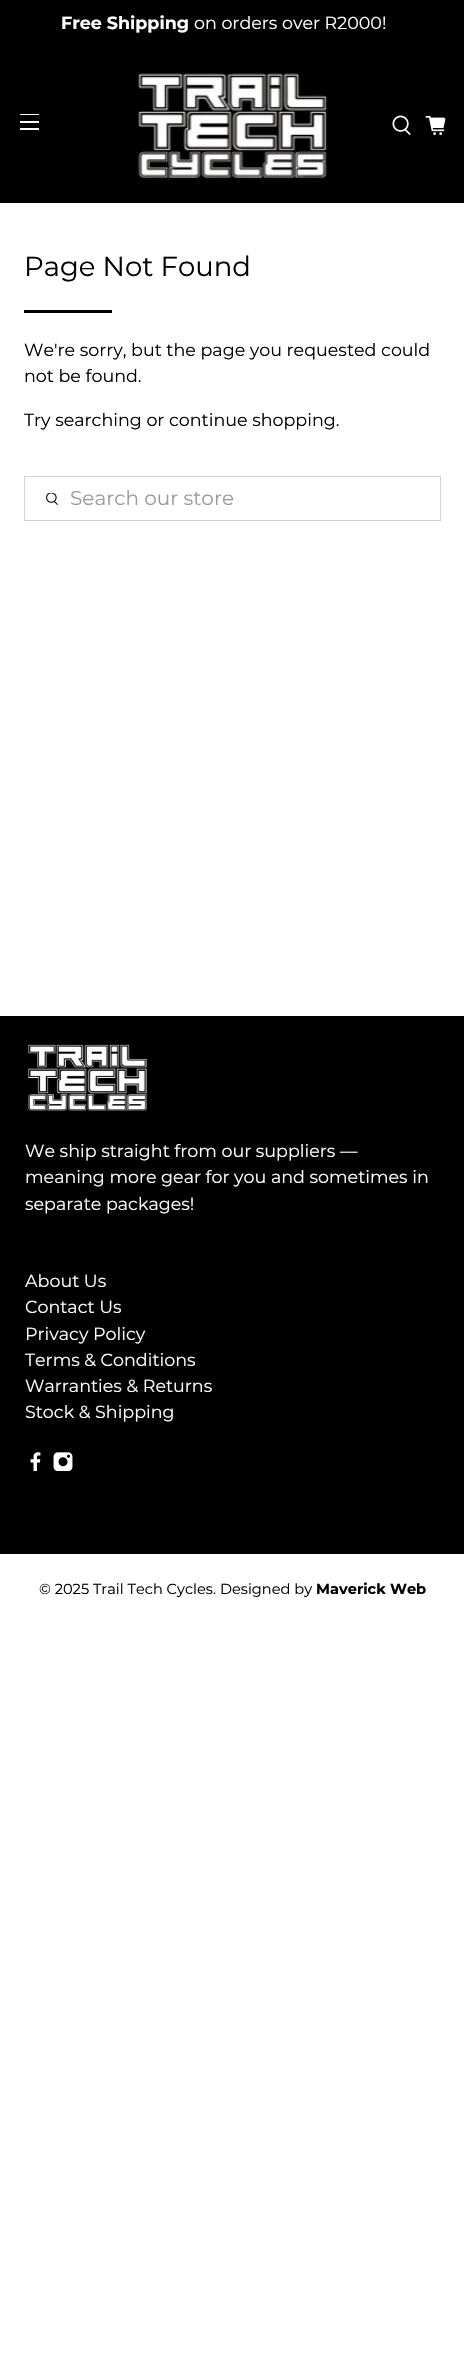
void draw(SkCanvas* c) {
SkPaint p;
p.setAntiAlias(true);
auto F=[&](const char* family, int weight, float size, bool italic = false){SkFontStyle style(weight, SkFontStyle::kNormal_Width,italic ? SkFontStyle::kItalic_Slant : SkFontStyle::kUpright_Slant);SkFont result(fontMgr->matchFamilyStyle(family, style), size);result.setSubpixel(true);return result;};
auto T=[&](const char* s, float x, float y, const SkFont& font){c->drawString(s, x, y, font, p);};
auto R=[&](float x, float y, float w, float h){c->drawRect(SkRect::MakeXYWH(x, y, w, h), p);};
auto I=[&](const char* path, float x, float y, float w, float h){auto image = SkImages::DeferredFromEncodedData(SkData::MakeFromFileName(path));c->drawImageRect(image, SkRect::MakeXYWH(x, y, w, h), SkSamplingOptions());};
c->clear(0xffffffff);
p.setColor(0xff000000);
R(0,0,464,203);
auto f1 = F("Montserrat",700,17.5);
p.setColor(0xffffffff);
T("Free Shipping",61,29,f1);
auto f2 = F("Montserrat",400,17.5);
T("on orders over R2000!",194,29,f2);
R(20,114,19,1);
R(20,121,19,2);
R(20,128,19,2);
I("1.png",138,73,189,107);
I("2.png",392,115,19,20);
I("3.png",425,116,21,19);
auto f3 = F("Montserrat",400,27.5);
p.setColor(0xff000000);
T("Page Not Found",24,276,f3);
R(24,310,88,3);
T("We're sorry, but the page you requested could",24,356,f2);
T("not be found.",24,382,f2);
T("Try searching or continue shopping.",24,426,f2);
p.setStroke(true);
p.setStrokeWidth(1);
p.setColor(0xffd3d3d3);
c->drawRect(SkRect::MakeXYWH(24.5,476.5,416,44),p);
I("4.png",46,493,12,12);
auto f4 = F("Montserrat",400,20);
p.setStroke(false);
p.setColor(0xff9b9b9b);
T("Search our store",70,505,f4);
p.setColor(0xff000000);
R(0,1016,464,538);
I("5.png",28,1044,119,67);
p.setColor(0xffffffff);
T("We ship straight from our suppliers —",25,1157,f2);
T("meaning more gear for you and sometimes in",25,1183,f2);
T("separate packages!",25,1210,f2);
T("About Us",25,1287,f2);
T("Contact Us",25,1313,f2);
T("Privacy Policy",25,1340,f2);
T("Terms & Conditions",25,1366,f2);
T("Warranties & Returns",25,1392,f2);
T("Stock & Shipping",25,1418,f2);
I("6.png",30,1452,11,19);
I("7.png",53,1452,20,19);
auto f5 = F("Montserrat",400,14.6);
p.setColor(0xff000000);
T("© 2025 Trail Tech Cycles. Designed by",39,1594,f5);
auto f6 = F("Montserrat",700,14.6);
T("Maverick Web",316,1594,f6);
}
